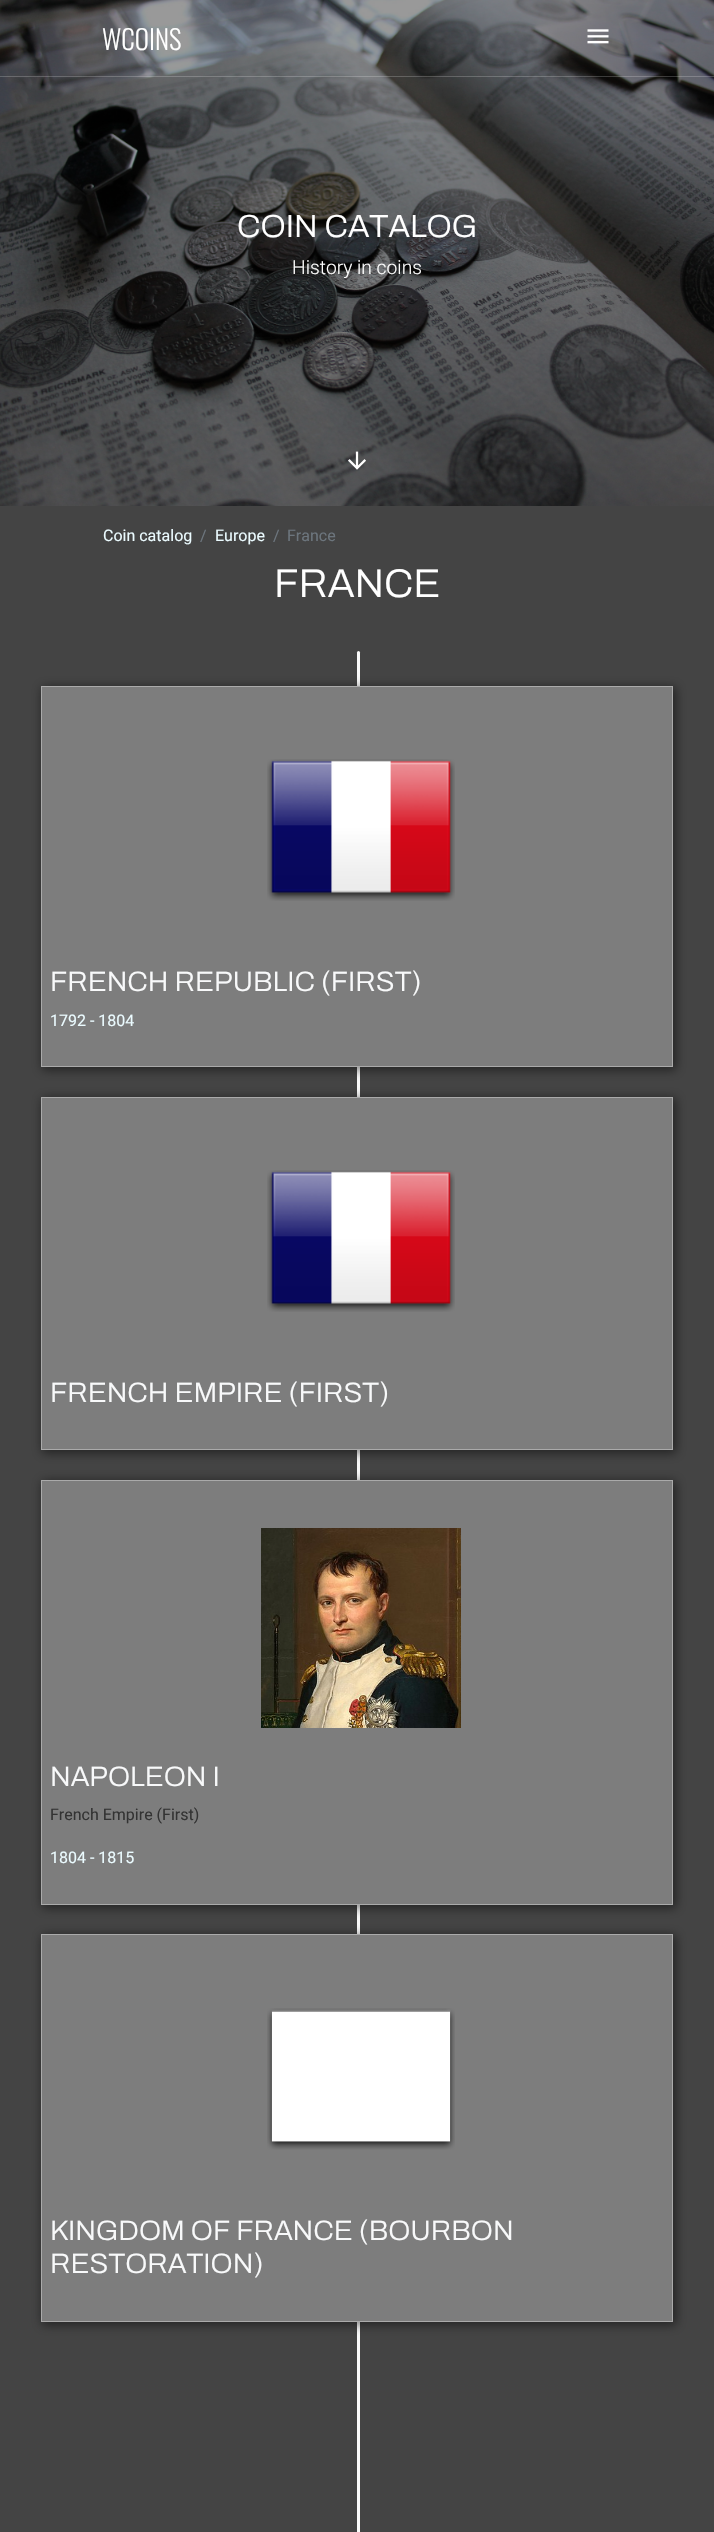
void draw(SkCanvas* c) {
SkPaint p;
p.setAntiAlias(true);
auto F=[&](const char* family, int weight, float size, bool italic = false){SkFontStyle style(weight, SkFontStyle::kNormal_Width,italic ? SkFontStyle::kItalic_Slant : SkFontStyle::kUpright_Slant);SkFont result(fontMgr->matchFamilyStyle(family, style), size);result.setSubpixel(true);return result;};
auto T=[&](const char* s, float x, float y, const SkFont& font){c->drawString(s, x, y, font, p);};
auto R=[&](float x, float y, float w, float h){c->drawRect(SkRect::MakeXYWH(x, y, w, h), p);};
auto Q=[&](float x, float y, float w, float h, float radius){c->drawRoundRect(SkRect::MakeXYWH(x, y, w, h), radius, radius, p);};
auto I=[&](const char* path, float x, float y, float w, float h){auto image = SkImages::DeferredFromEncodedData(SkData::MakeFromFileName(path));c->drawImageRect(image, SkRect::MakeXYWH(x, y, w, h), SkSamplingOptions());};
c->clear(0xff444444);
I("2.png",0,0,714,506);
p.setColor(0x33ffffff);
R(0,76,714,1);
auto f1 = F("Oswald",300,27);
p.setColor(0xffffffff);
T("WCOINS",102,50,f1);
I("1.png",587,29,22,15);
auto f2 = F("Archivo",300,32);
T("COIN CATALOG",237,237,f2);
auto f3 = F("Roboto",300,19.25);
T("History in coins",292,274,f3);
I("3.png",348,451,18,19);
auto f4 = F("Roboto",400,16);
p.setColor(0xffebfbff);
T("Coin catalog",103,541,f4);
p.setColor(0xff6c757d);
T("/",200,541,f4);
p.setColor(0xffebfbff);
T("Europe",215,541,f4);
p.setColor(0xff6c757d);
T("/",273,541,f4);
T("France",287,541,f4);
auto f5 = F("Archivo",300,40);
p.setColor(0xffffffff);
T("FRANCE",274,597,f5);
p.setColor(0xfffafafa);
Q(357,651,3,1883,1.5);
p.setColor(0x80000000);
p.setMaskFilter(SkMaskFilter::MakeBlur(kNormal_SkBlurStyle, 5));
c->drawRect(SkRect::MakeXYWH(42,687,634,383),p);
p.setMaskFilter(nullptr);
p.setColor(0xff7d7d7d);
c->drawRect(SkRect::MakeXYWH(41.5,686.5,631,380),p);
p.setStroke(true);
p.setStrokeWidth(1);
p.setColor(0xffaaaaaa);
c->drawRect(SkRect::MakeXYWH(41.5,686.5,631,380),p);
I("4.png",267,759,188,142);
auto f6 = F("Archivo",300,28);
p.setStroke(false);
p.setColor(0xfff8f9fa);
T("FRENCH REPUBLIC (FIRST)",50,991,f6);
p.setColor(0xffebfbff);
T("1792 - 1804",50,1026,f4);
p.setColor(0x80000000);
p.setMaskFilter(SkMaskFilter::MakeBlur(kNormal_SkBlurStyle, 5));
c->drawRect(SkRect::MakeXYWH(42,1098,634,355),p);
p.setMaskFilter(nullptr);
p.setColor(0xff7d7d7d);
c->drawRect(SkRect::MakeXYWH(41.5,1097.5,631,352),p);
p.setStroke(true);
p.setColor(0xffaaaaaa);
c->drawRect(SkRect::MakeXYWH(41.5,1097.5,631,352),p);
I("5.png",267,1170,188,142);
p.setStroke(false);
p.setColor(0xfff8f9fa);
T("FRENCH EMPIRE (FIRST)",50,1402,f6);
p.setColor(0x80000000);
p.setMaskFilter(SkMaskFilter::MakeBlur(kNormal_SkBlurStyle, 5));
c->drawRect(SkRect::MakeXYWH(42,1481,634,427),p);
p.setMaskFilter(nullptr);
p.setColor(0xff7d7d7d);
c->drawRect(SkRect::MakeXYWH(41.5,1480.5,631,424),p);
p.setStroke(true);
p.setColor(0xffaaaaaa);
c->drawRect(SkRect::MakeXYWH(41.5,1480.5,631,424),p);
I("6.png",261,1528,200,200);
p.setStroke(false);
p.setColor(0xfff8f9fa);
T("NAPOLEON I",50,1786,f6);
p.setColor(0xff333333);
T("French Empire (First)",50,1820,f4);
p.setColor(0xffebfbff);
T("1804 - 1815",50,1863,f4);
p.setColor(0x80000000);
p.setMaskFilter(SkMaskFilter::MakeBlur(kNormal_SkBlurStyle, 5));
c->drawRect(SkRect::MakeXYWH(42,1935,634,390),p);
p.setMaskFilter(nullptr);
p.setColor(0xff7d7d7d);
c->drawRect(SkRect::MakeXYWH(41.5,1934.5,631,387),p);
p.setStroke(true);
p.setColor(0xffaaaaaa);
c->drawRect(SkRect::MakeXYWH(41.5,1934.5,631,387),p);
I("7.png",267,2008,188,142);
p.setStroke(false);
p.setColor(0xfff8f9fa);
T("KINGDOM OF FRANCE (BOURBON",50,2240,f6);
T("RESTORATION)",50,2273,f6);
}
